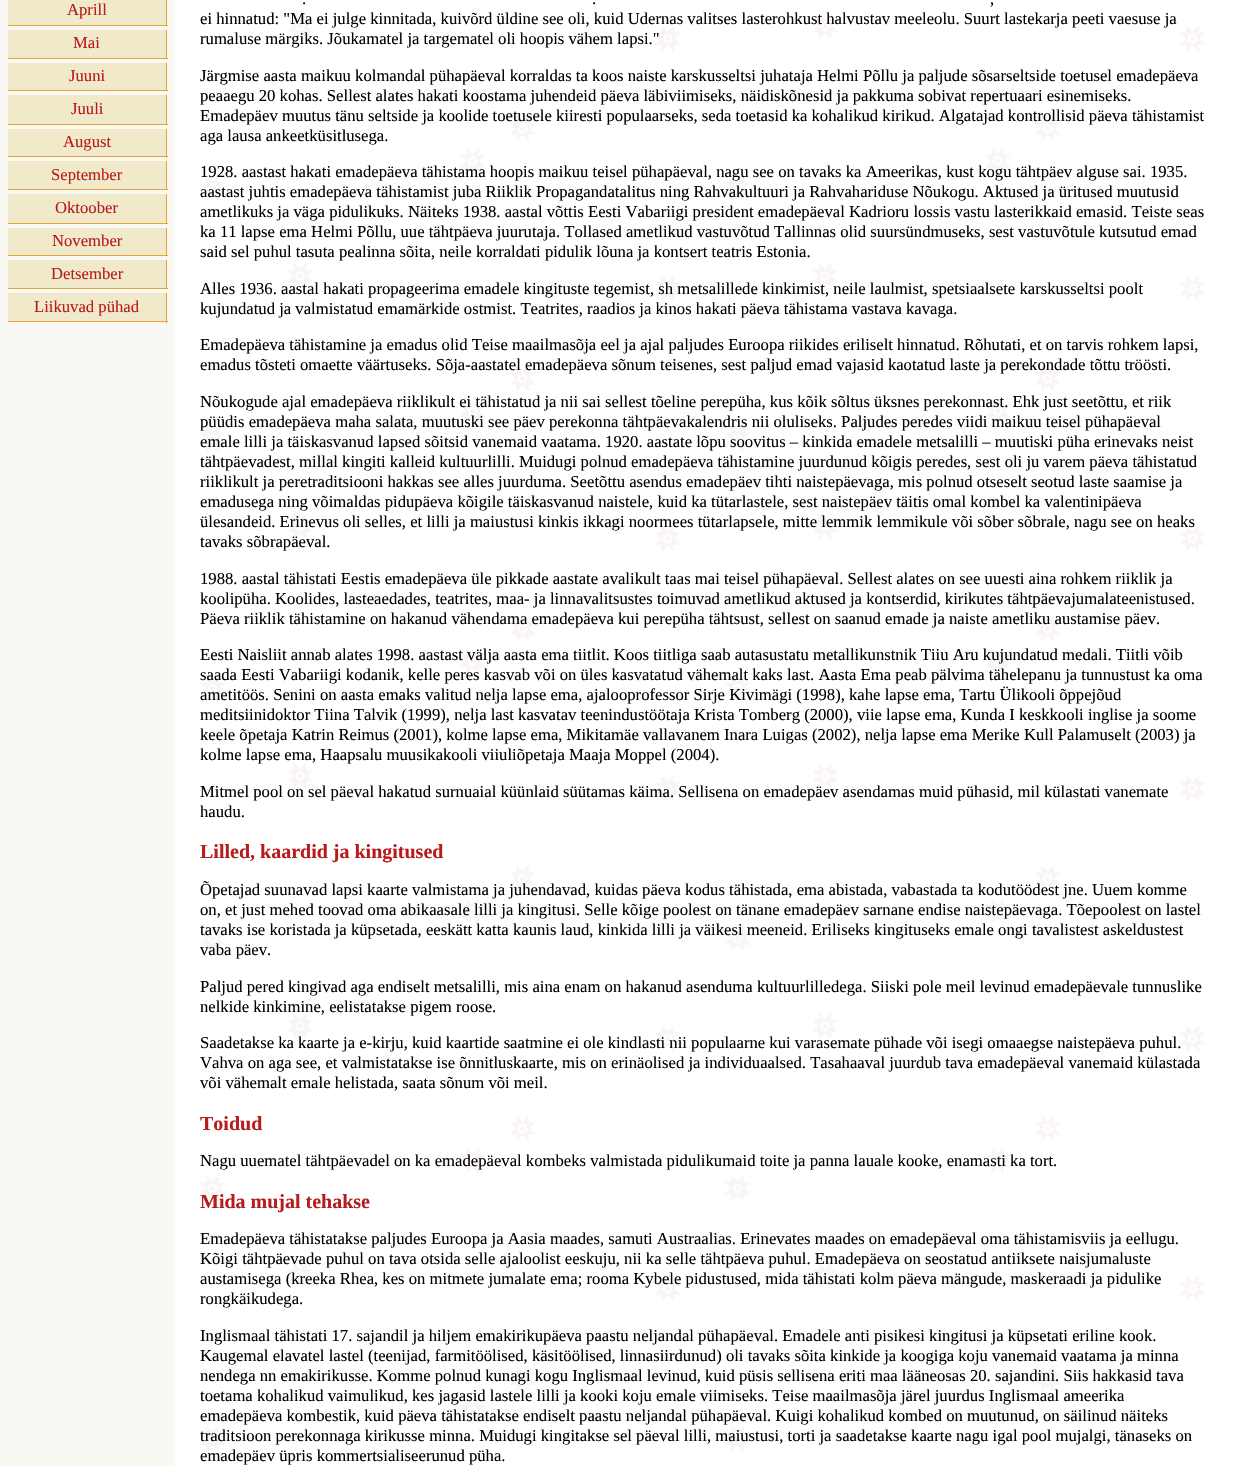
void draw(SkCanvas* c) {
SkPaint p;
p.setAntiAlias(true);
auto F=[&](const char* family, int weight, float size, bool italic = false){SkFontStyle style(weight, SkFontStyle::kNormal_Width,italic ? SkFontStyle::kItalic_Slant : SkFontStyle::kUpright_Slant);SkFont result(fontMgr->matchFamilyStyle(family, style), size);result.setSubpixel(true);return result;};
auto T=[&](const char* s, float x, float y, const SkFont& font){c->drawString(s, x, y, font, p);};
auto R=[&](float x, float y, float w, float h){c->drawRect(SkRect::MakeXYWH(x, y, w, h), p);};
auto I=[&](const char* path, float x, float y, float w, float h){auto image = SkImages::DeferredFromEncodedData(SkData::MakeFromFileName(path));c->drawImageRect(image, SkRect::MakeXYWH(x, y, w, h), SkSamplingOptions());};
c->clear(0xffffffff);
p.setColor(0xfffaf8f2);
R(0,0,175,1466);
p.setColor(0xfff0e9ca);
R(8,0,158,25);
p.setColor(0xffe3a53a);
R(166,0,1,26);
R(8,25,160,1);
auto f1 = F("Liberation Serif",400,16.67);
p.setColor(0xffb81b1b);
T("Aprill",67,15,f1);
p.setColor(0xfff0e9ca);
R(8,30,158,28);
p.setColor(0xffe3a53a);
R(166,30,1,29);
R(8,58,160,1);
p.setColor(0xffb81b1b);
T("Mai",73,48,f1);
p.setColor(0xfff0e9ca);
R(8,63,158,27);
p.setColor(0xffe3a53a);
R(166,63,1,28);
R(8,90,160,1);
p.setColor(0xffb81b1b);
T("Juuni",69,81,f1);
p.setColor(0xfff0e9ca);
R(8,95,158,29);
p.setColor(0xffe3a53a);
R(166,95,1,30);
R(8,124,160,1);
p.setColor(0xffb81b1b);
T("Juuli",71,114,f1);
p.setColor(0xfff0e9ca);
R(8,129,158,27);
p.setColor(0xffe3a53a);
R(166,129,1,29);
R(8,156,160,1);
p.setColor(0xffb81b1b);
T("August",63,147,f1);
p.setColor(0xfff0e9ca);
R(8,161,158,28);
p.setColor(0xffe3a53a);
R(166,161,1,29);
R(8,189,160,1);
p.setColor(0xffb81b1b);
T("September",51,180,f1);
p.setColor(0xfff0e9ca);
R(8,194,158,29);
p.setColor(0xffe3a53a);
R(166,194,1,30);
R(8,223,160,1);
p.setColor(0xffb81b1b);
T("Oktoober",55,213,f1);
p.setColor(0xfff0e9ca);
R(8,228,158,27);
p.setColor(0xffe3a53a);
R(166,228,1,28);
R(8,255,160,1);
p.setColor(0xffb81b1b);
T("November",52,246,f1);
p.setColor(0xfff0e9ca);
R(8,260,158,28);
p.setColor(0xffe3a53a);
R(166,260,1,29);
R(8,288,160,1);
p.setColor(0xffb81b1b);
T("Detsember",51,279,f1);
p.setColor(0xfff0e9ca);
R(8,293,158,28);
p.setColor(0xffe3a53a);
R(166,293,1,30);
R(8,321,160,1);
p.setColor(0xffb81b1b);
T("Liikuvad pühad",34,312,f1);
I("1.png",200,13,1005,1438);
p.setColor(0xff000000);
T(".",302,4,f1);
T(".",592,4,f1);
T(",",990,4,f1);
T("ei hinnatud: \"Ma ei julge kinnitada, kuivõrd üldine see oli, kuid Udernas valitses lasterohkust halvustav meeleolu. Suurt lastekarja peeti vaesuse ja",200,24,f1);
T("rumaluse märgiks. Jõukamatel ja targematel oli hoopis vähem lapsi.\"",200,44,f1);
T("Järgmise aasta maikuu kolmandal pühapäeval korraldas ta koos naiste karskusseltsi juhataja Helmi Põllu ja paljude sõsarseltside toetusel emadepäeva",200,81,f1);
T("peaaegu 20 kohas. Sellest alates hakati koostama juhendeid päeva läbiviimiseks, näidiskõnesid ja pakkuma sobivat repertuaari esinemiseks.",200,101,f1);
T("Emadepäev muutus tänu seltside ja koolide toetusele kiiresti populaarseks, seda toetasid ka kohalikud kirikud. Algatajad kontrollisid päeva tähistamist",200,121,f1);
T("aga lausa ankeetküsitlusega.",200,141,f1);
T("1928. aastast hakati emadepäeva tähistama hoopis maikuu teisel pühapäeval, nagu see on tavaks ka Ameerikas, kust kogu tähtpäev alguse sai. 1935.",200,177,f1);
T("aastast juhtis emadepäeva tähistamist juba Riiklik Propagandatalitus ning Rahvakultuuri ja Rahvahariduse Nõukogu. Aktused ja üritused muutusid",200,197,f1);
T("ametlikuks ja väga pidulikuks. Näiteks 1938. aastal võttis Eesti Vabariigi president emadepäeval Kadrioru lossis vastu lasterikkaid emasid. Teiste seas",200,217,f1);
T("ka 11 lapse ema Helmi Põllu, uue tähtpäeva juurutaja. Tollased ametlikud vastuvõtud Tallinnas olid suursündmuseks, sest vastuvõtule kutsutud emad",200,237,f1);
T("said sel puhul tasuta pealinna sõita, neile korraldati pidulik lõuna ja kontsert teatris Estonia.",200,257,f1);
T("Alles 1936. aastal hakati propageerima emadele kingituste tegemist, sh metsalillede kinkimist, neile laulmist, spetsiaalsete karskusseltsi poolt",200,294,f1);
T("kujundatud ja valmistatud emamärkide ostmist. Teatrites, raadios ja kinos hakati päeva tähistama vastava kavaga.",200,314,f1);
T("Emadepäeva tähistamine ja emadus olid Teise maailmasõja eel ja ajal paljudes Euroopa riikides eriliselt hinnatud. Rõhutati, et on tarvis rohkem lapsi,",200,350,f1);
T("emadus tõsteti omaette väärtuseks. Sõja-aastatel emadepäeva sõnum teisenes, sest paljud emad vajasid kaotatud laste ja perekondade tõttu tröösti.",200,370,f1);
T("Nõukogude ajal emadepäeva riiklikult ei tähistatud ja nii sai sellest tõeline perepüha, kus kõik sõltus üksnes perekonnast. Ehk just seetõttu, et riik",200,407,f1);
T("püüdis emadepäeva maha salata, muutuski see päev perekonna tähtpäevakalendris nii oluliseks. Paljudes peredes viidi maikuu teisel pühapäeval",200,427,f1);
T("emale lilli ja täiskasvanud lapsed sõitsid vanemaid vaatama. 1920. aastate lõpu soovitus – kinkida emadele metsalilli – muutiski püha erinevaks neist",200,447,f1);
T("tähtpäevadest, millal kingiti kalleid kultuurlilli. Muidugi polnud emadepäeva tähistamine juurdunud kõigis peredes, sest oli ju varem päeva tähistatud",200,467,f1);
T("riiklikult ja peretraditsiooni hakkas see alles juurduma. Seetõttu asendus emadepäev tihti naistepäevaga, mis polnud otseselt seotud laste saamise ja",200,487,f1);
T("emadusega ning võimaldas pidupäeva kõigile täiskasvanud naistele, kuid ka tütarlastele, sest naistepäev täitis omal kombel ka valentinipäeva",200,507,f1);
T("ülesandeid. Erinevus oli selles, et lilli ja maiustusi kinkis ikkagi noormees tütarlapsele, mitte lemmik lemmikule või sõber sõbrale, nagu see on heaks",200,527,f1);
T("tavaks sõbrapäeval.",200,547,f1);
T("1988. aastal tähistati Eestis emadepäeva üle pikkade aastate avalikult taas mai teisel pühapäeval. Sellest alates on see uuesti aina rohkem riiklik ja",200,584,f1);
T("koolipüha. Koolides, lasteaedades, teatrites, maa- ja linnavalitsustes toimuvad ametlikud aktused ja kontserdid, kirikutes tähtpäevajumalateenistused.",200,604,f1);
T("Päeva riiklik tähistamine on hakanud vähendama emadepäeva kui perepüha tähtsust, sellest on saanud emade ja naiste ametliku austamise päev.",200,624,f1);
T("Eesti Naisliit annab alates 1998. aastast välja aasta ema tiitlit. Koos tiitliga saab autasustatu metallikunstnik Tiiu Aru kujundatud medali. Tiitli võib",200,660,f1);
T("saada Eesti Vabariigi kodanik, kelle peres kasvab või on üles kasvatatud vähemalt kaks last. Aasta Ema peab pälvima tähelepanu ja tunnustust ka oma",200,680,f1);
T("ametitöös. Senini on aasta emaks valitud nelja lapse ema, ajalooprofessor Sirje Kivimägi (1998), kahe lapse ema, Tartu Ülikooli õppejõud",200,700,f1);
T("meditsiinidoktor Tiina Talvik (1999), nelja last kasvatav teenindustöötaja Krista Tomberg (2000), viie lapse ema, Kunda I keskkooli inglise ja soome",200,720,f1);
T("keele õpetaja Katrin Reimus (2001), kolme lapse ema, Mikitamäe vallavanem Inara Luigas (2002), nelja lapse ema Merike Kull Palamuselt (2003) ja",200,740,f1);
T("kolme lapse ema, Haapsalu muusikakooli viiuliõpetaja Maaja Moppel (2004).",200,760,f1);
T("Mitmel pool on sel päeval hakatud surnuaial küünlaid süütamas käima. Sellisena on emadepäev asendamas muid pühasid, mil külastati vanemate",200,797,f1);
T("haudu.",200,817,f1);
auto f2 = F("Liberation Serif",700,20);
p.setColor(0xffb81b1b);
T("Lilled, kaardid ja kingitused",200,858,f2);
p.setColor(0xff000000);
T("Õpetajad suunavad lapsi kaarte valmistama ja juhendavad, kuidas päeva kodus tähistada, ema abistada, vabastada ta kodutöödest jne. Uuem komme",200,895,f1);
T("on, et just mehed toovad oma abikaasale lilli ja kingitusi. Selle kõige poolest on tänane emadepäev sarnane endise naistepäevaga. Tõepoolest on lastel",200,915,f1);
T("tavaks ise koristada ja küpsetada, eeskätt katta kaunis laud, kinkida lilli ja väikesi meeneid. Eriliseks kingituseks emale ongi tavalistest askeldustest",200,935,f1);
T("vaba päev.",200,955,f1);
T("Paljud pered kingivad aga endiselt metsalilli, mis aina enam on hakanud asenduma kultuurlilledega. Siiski pole meil levinud emadepäevale tunnuslike",200,992,f1);
T("nelkide kinkimine, eelistatakse pigem roose.",200,1012,f1);
T("Saadetakse ka kaarte ja e-kirju, kuid kaartide saatmine ei ole kindlasti nii populaarne kui varasemate pühade või isegi omaaegse naistepäeva puhul.",200,1048,f1);
T("Vahva on aga see, et valmistatakse ise õnnitluskaarte, mis on erinäolised ja individuaalsed. Tasahaaval juurdub tava emadepäeval vanemaid külastada",200,1068,f1);
T("või vähemalt emale helistada, saata sõnum või meil.",200,1088,f1);
p.setColor(0xffb81b1b);
T("Toidud",200,1130,f2);
p.setColor(0xff000000);
T("Nagu uuematel tähtpäevadel on ka emadepäeval kombeks valmistada pidulikumaid toite ja panna lauale kooke, enamasti ka tort.",200,1166,f1);
p.setColor(0xffb81b1b);
T("Mida mujal tehakse",200,1208,f2);
p.setColor(0xff000000);
T("Emadepäeva tähistatakse paljudes Euroopa ja Aasia maades, samuti Austraalias. Erinevates maades on emadepäeval oma tähistamisviis ja eellugu.",200,1244,f1);
T("Kõigi tähtpäevade puhul on tava otsida selle ajaloolist eeskuju, nii ka selle tähtpäeva puhul. Emadepäeva on seostatud antiiksete naisjumaluste",200,1264,f1);
T("austamisega (kreeka Rhea, kes on mitmete jumalate ema; rooma Kybele pidustused, mida tähistati kolm päeva mängude, maskeraadi ja pidulike",200,1284,f1);
T("rongkäikudega.",200,1304,f1);
T("Inglismaal tähistati 17. sajandil ja hiljem emakirikupäeva paastu neljandal pühapäeval. Emadele anti pisikesi kingitusi ja küpsetati eriline kook.",200,1341,f1);
T("Kaugemal elavatel lastel (teenijad, farmitöölised, käsitöölised, linnasiirdunud) oli tavaks sõita kinkide ja koogiga koju vanemaid vaatama ja minna",200,1361,f1);
T("nendega nn emakirikusse. Komme polnud kunagi kogu Inglismaal levinud, kuid püsis sellisena eriti maa lääneosas 20. sajandini. Siis hakkasid tava",200,1381,f1);
T("toetama kohalikud vaimulikud, kes jagasid lastele lilli ja kooki koju emale viimiseks. Teise maailmasõja järel juurdus Inglismaal ameerika",200,1401,f1);
T("emadepäeva kombestik, kuid päeva tähistatakse endiselt paastu neljandal pühapäeval. Kuigi kohalikud kombed on muutunud, on säilinud näiteks",200,1421,f1);
T("traditsioon perekonnaga kirikusse minna. Muidugi kingitakse sel päeval lilli, maiustusi, torti ja saadetakse kaarte nagu igal pool mujalgi, tänaseks on",200,1441,f1);
T("emadepäev üpris kommertsialiseerunud püha.",200,1461,f1);
}
